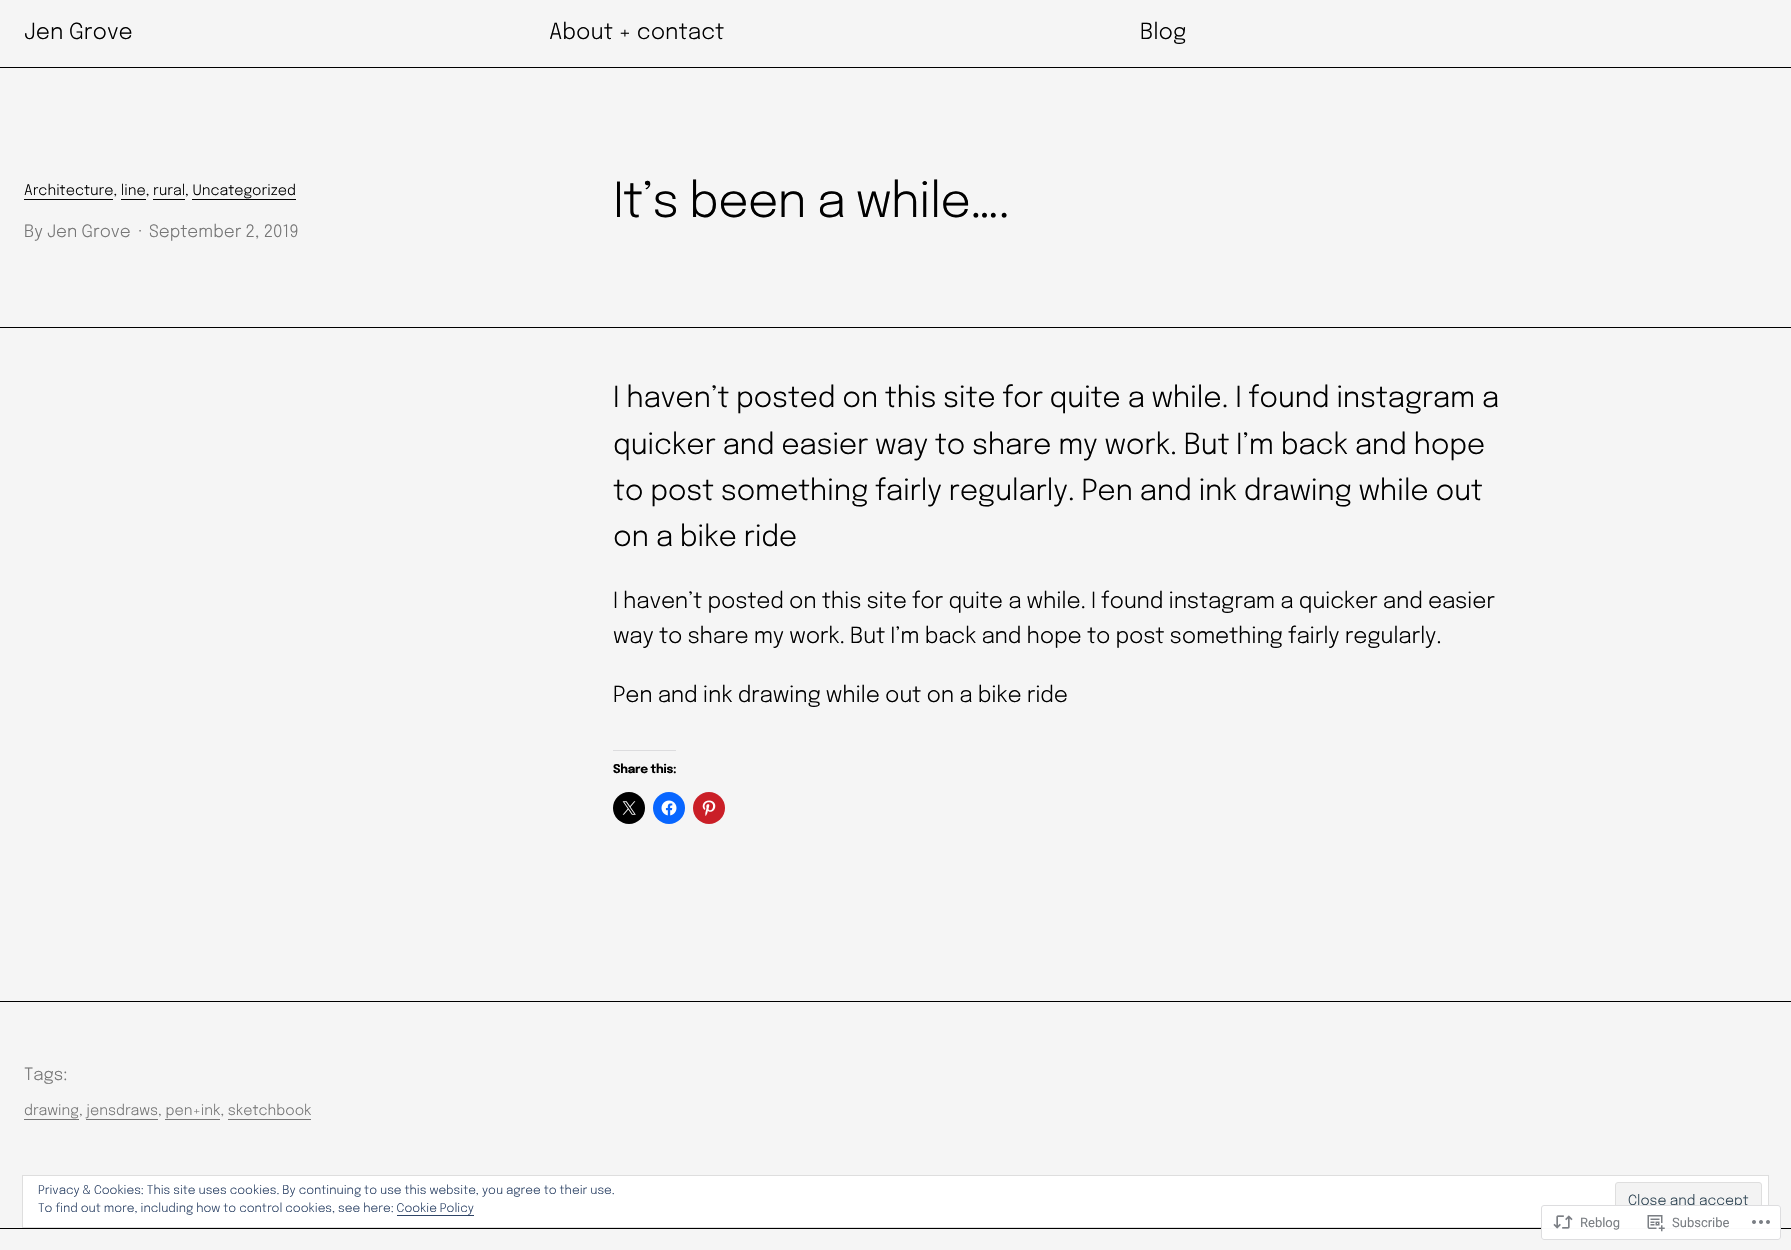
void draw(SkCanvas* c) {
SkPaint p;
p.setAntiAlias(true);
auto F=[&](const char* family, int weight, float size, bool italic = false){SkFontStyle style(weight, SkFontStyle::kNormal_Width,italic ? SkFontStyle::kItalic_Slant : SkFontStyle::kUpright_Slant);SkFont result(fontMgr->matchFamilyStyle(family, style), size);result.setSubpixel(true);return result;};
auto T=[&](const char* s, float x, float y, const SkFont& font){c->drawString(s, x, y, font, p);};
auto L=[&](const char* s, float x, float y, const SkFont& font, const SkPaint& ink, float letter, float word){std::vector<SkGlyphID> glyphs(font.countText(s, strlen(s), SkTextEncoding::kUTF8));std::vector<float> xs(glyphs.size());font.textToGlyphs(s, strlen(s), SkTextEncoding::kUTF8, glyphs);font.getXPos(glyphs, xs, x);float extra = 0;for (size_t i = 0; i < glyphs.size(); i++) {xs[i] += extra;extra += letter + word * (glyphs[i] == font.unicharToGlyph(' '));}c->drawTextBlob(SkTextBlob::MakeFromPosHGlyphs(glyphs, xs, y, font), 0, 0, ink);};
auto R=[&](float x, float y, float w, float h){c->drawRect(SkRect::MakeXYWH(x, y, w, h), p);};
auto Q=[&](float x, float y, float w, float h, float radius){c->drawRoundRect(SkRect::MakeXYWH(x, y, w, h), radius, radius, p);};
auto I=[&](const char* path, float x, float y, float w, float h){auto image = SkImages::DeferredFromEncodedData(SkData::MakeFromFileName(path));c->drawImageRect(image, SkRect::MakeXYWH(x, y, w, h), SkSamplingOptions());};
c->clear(0xfff5f5f5);
p.setColor(0xff000000);
R(0,67,1791,1);
auto f1 = F("Epilogue",300,22.1);
T("Jen Grove",24,39,f1);
T("About + contact",549,39,f1);
T("Blog",1140,39,f1);
R(0,327,1791,1);
auto f2 = F("Epilogue",300,14.4);
T("Architecture, line, rural, Uncategorized",24,195,f2);
R(24,199,89,1);
R(121,199,25,1);
R(153,199,32,1);
R(192,199,104,1);
auto f3 = F("Epilogue",300,17);
p.setColor(0xff767676);
T("By",24,237,f3);
T("Jen Grove",47,237,f3);
T("·",138,237,f3);
T("September 2, 2019",149,237,f3);
auto f4 = F("Epilogue",300,48);
p.setColor(0xff000000);
L("It’s been a while….",613,217,f4,p,-1,0);
auto f5 = F("Epilogue",300,28.8);
L("I haven’t posted on this site for quite a while. I found instagram a",613,407,f5,p,-.3,0);
L("quicker and easier way to share my work. But I’m back and hope",613,454,f5,p,-.3,0);
L("to post something fairly regularly. Pen and ink drawing while out",613,500,f5,p,-.3,0);
L("on a bike ride",613,546,f5,p,-.3,0);
L("I haven’t posted on this site for quite a while. I found instagram a quicker and easier",613,608,f1,p,-.22,0);
L("way to share my work. But I’m back and hope to post something fairly regularly.",613,643,f1,p,-.22,0);
L("Pen and ink drawing while out on a bike ride",613,702,f1,p,-.22,0);
p.setColor(0xffdcdcde);
R(613,750,63,1);
auto f6 = F("Epilogue",700,12);
p.setColor(0xff000000);
L("Share this:",613,773,f6,p,-.25,0);
c->drawCircle(629,808,16,p);
I("1.png",622,801,14,14);
p.setColor(0xff0866ff);
c->drawCircle(669,808,16,p);
I("2.png",661,800,16,16);
p.setColor(0xffca1f27);
c->drawCircle(709,808,16,p);
I("3.png",702,800,14,16);
p.setColor(0xff000000);
R(0,1001,1791,1);
p.setColor(0xff767676);
T("Tags:",24,1080,f3);
T("drawing, jensdraws, pen+ink, sketchbook",24,1115,f2);
R(24,1119,55,1);
R(86,1119,72,1);
R(165,1119,55,1);
R(228,1119,83,1);
p.setColor(0xff000000);
R(0,1228,1791,1);
p.setColor(0xffffffff);
c->drawRect(SkRect::MakeXYWH(22.5,1175.5,1746,52),p);
p.setStroke(true);
p.setStrokeWidth(1);
p.setColor(0xffdedede);
c->drawRect(SkRect::MakeXYWH(22.5,1175.5,1746,52),p);
auto f7 = F("Epilogue",300,12);
p.setStroke(false);
p.setColor(0xff2e4467);
T("Privacy & Cookies: This site uses cookies. By continuing to use this website, you agree to their use.",38,1194,f7);
T("To find out more, including how to control cookies, see here: Cookie Policy",38,1212,f7);
p.setColor(0xfff3f3f3);
c->drawRoundRect(SkRect::MakeXYWH(1615.5,1182.5,146,38),2.5,2.5,p);
p.setStroke(true);
p.setColor(0xffdedede);
c->drawRoundRect(SkRect::MakeXYWH(1615.5,1182.5,146,38),2.5,2.5,p);
auto f8 = F("Epilogue",300,14);
p.setStroke(false);
p.setColor(0xff2e4453);
T("Close and accept",1628,1205,f8);
p.setColor(0xff2e4467);
R(397,1215,77,1);
p.setColor(0xfaffffff);
Q(1541,1205,240,35,3);
p.setStroke(true);
p.setColor(0xfadcdcde);
c->drawRoundRect(SkRect::MakeXYWH(1541.5,1205.5,239,34),2.5,2.5,p);
I("4.png",1553,1215,20,14);
auto f9 = F("Roboto",400,13);
p.setStroke(false);
p.setColor(0xff7b7f84);
T("Reblog",1580,1227,f9);
I("5.png",1647,1215,18,17);
T("Subscribe",1672,1227,f9);
I("6.png",1752,1220,18,4);
}
